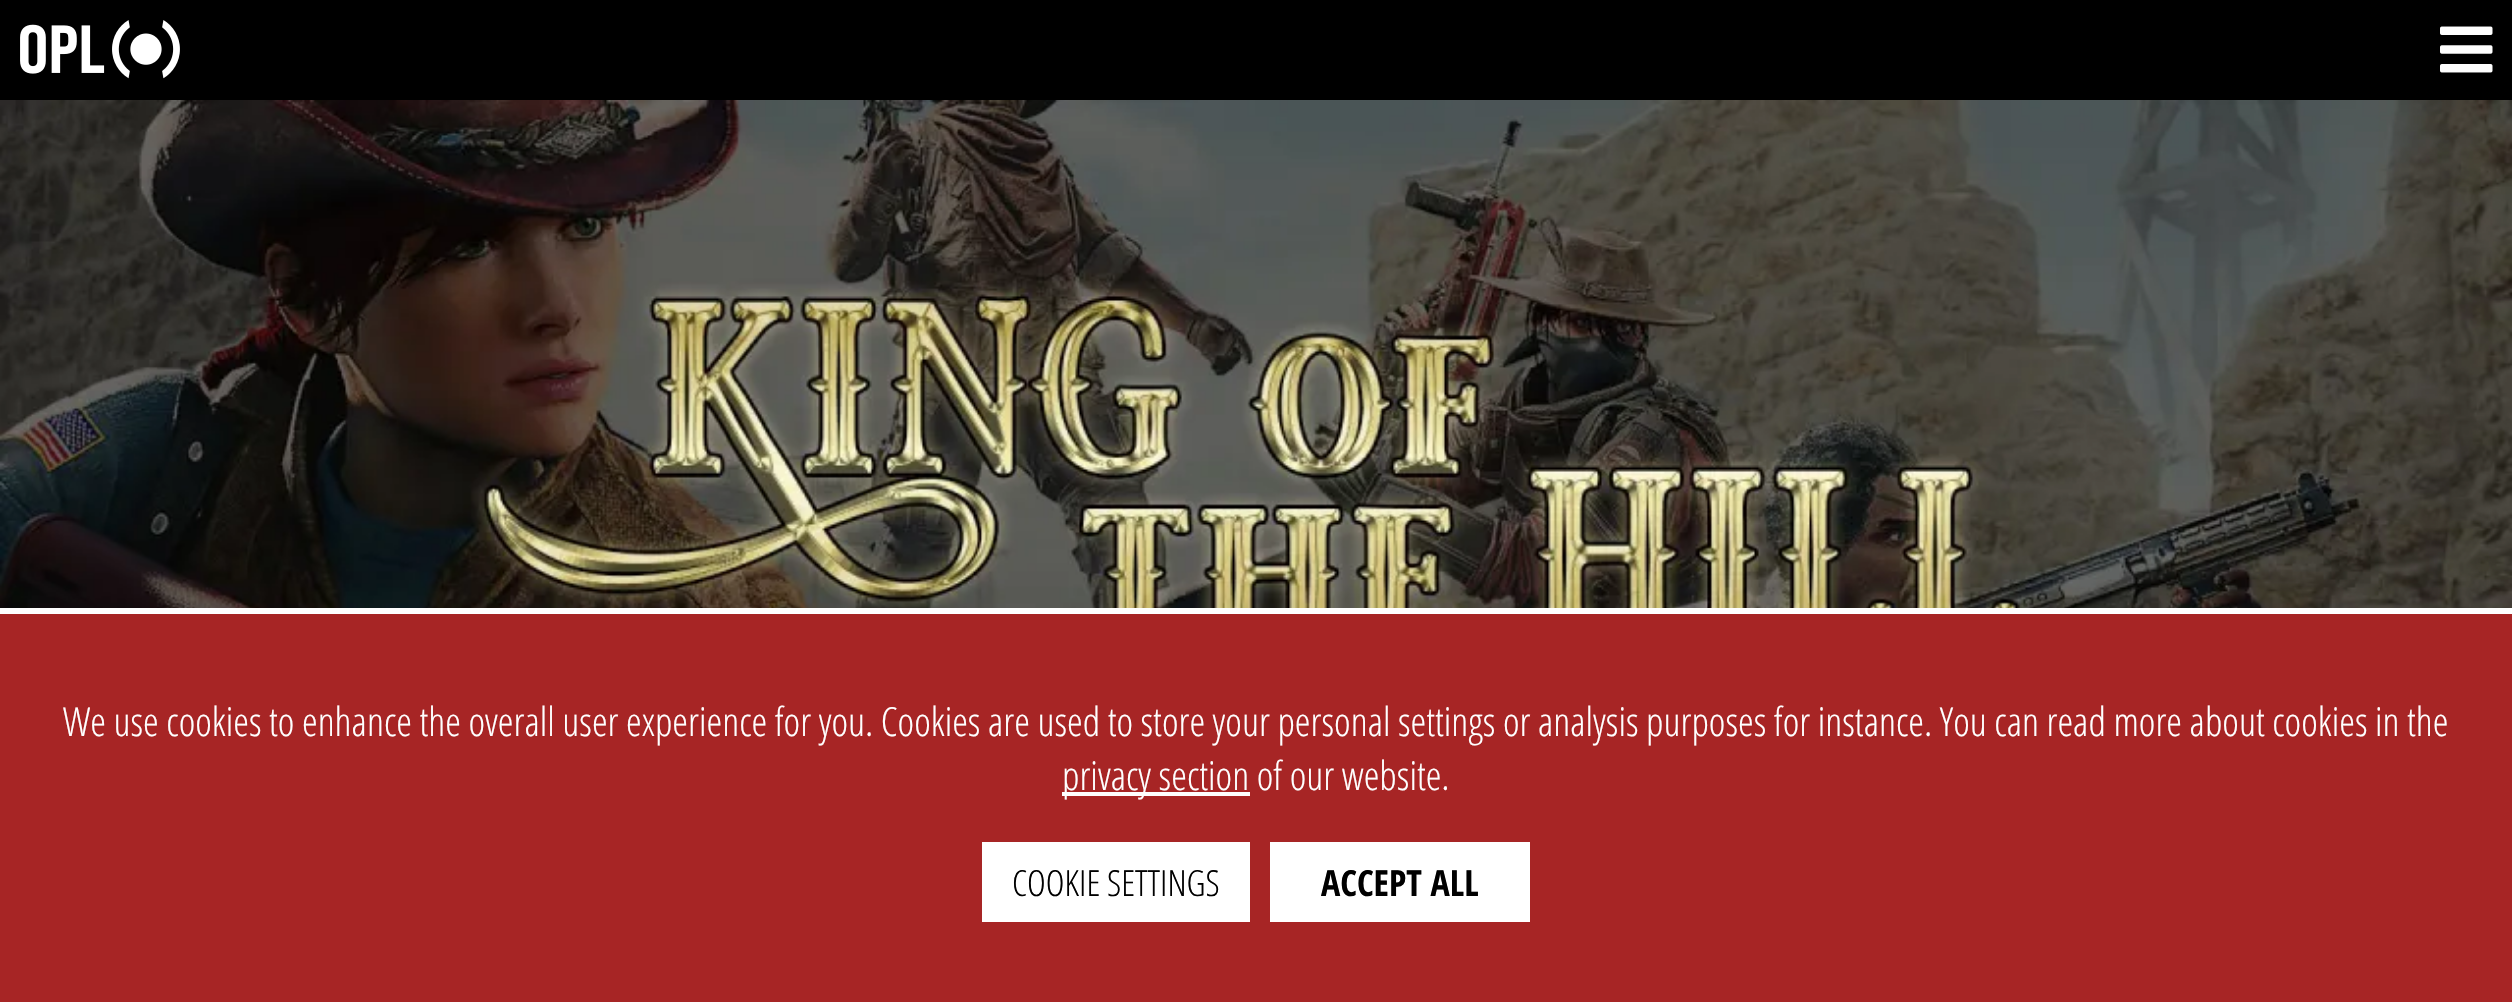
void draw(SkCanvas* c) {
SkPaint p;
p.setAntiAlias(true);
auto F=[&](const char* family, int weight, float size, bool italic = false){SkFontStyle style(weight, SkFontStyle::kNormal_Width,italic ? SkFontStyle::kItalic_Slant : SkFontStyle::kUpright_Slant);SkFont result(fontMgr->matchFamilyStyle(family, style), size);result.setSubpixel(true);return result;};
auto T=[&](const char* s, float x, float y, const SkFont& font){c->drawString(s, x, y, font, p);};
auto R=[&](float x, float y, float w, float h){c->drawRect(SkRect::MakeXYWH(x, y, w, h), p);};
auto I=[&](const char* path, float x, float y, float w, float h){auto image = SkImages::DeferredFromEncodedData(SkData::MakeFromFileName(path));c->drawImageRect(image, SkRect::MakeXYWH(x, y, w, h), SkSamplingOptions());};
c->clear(0xffffffff);
p.setColor(0xff000000);
R(0,0,2512,100);
I("1.png",20,20,160,59);
I("2.png",2440,26,53,47);
I("3.png",0,100,2512,508);
p.setColor(0xffa72525);
R(0,614,2512,388);
auto f1 = F("Open Sans",300,40);
p.setColor(0xffffffff);
T("We use cookies to enhance the overall user experience for you. Cookies are used to store your personal settings or analysis purposes for instance. You can read more about cookies in the",63,736,f1);
R(1062,792,188,4);
T("privacy section of our website.",1062,790,f1);
R(982,842,268,80);
auto f2 = F("Open Sans",300,36);
p.setColor(0xff000000);
T("COOKIE SETTINGS",1012,896,f2);
p.setColor(0xffffffff);
R(1270,842,260,80);
auto f3 = F("Open Sans Condensed",700,36);
p.setColor(0xff000000);
T("ACCEPT ALL",1321,896,f3);
}
